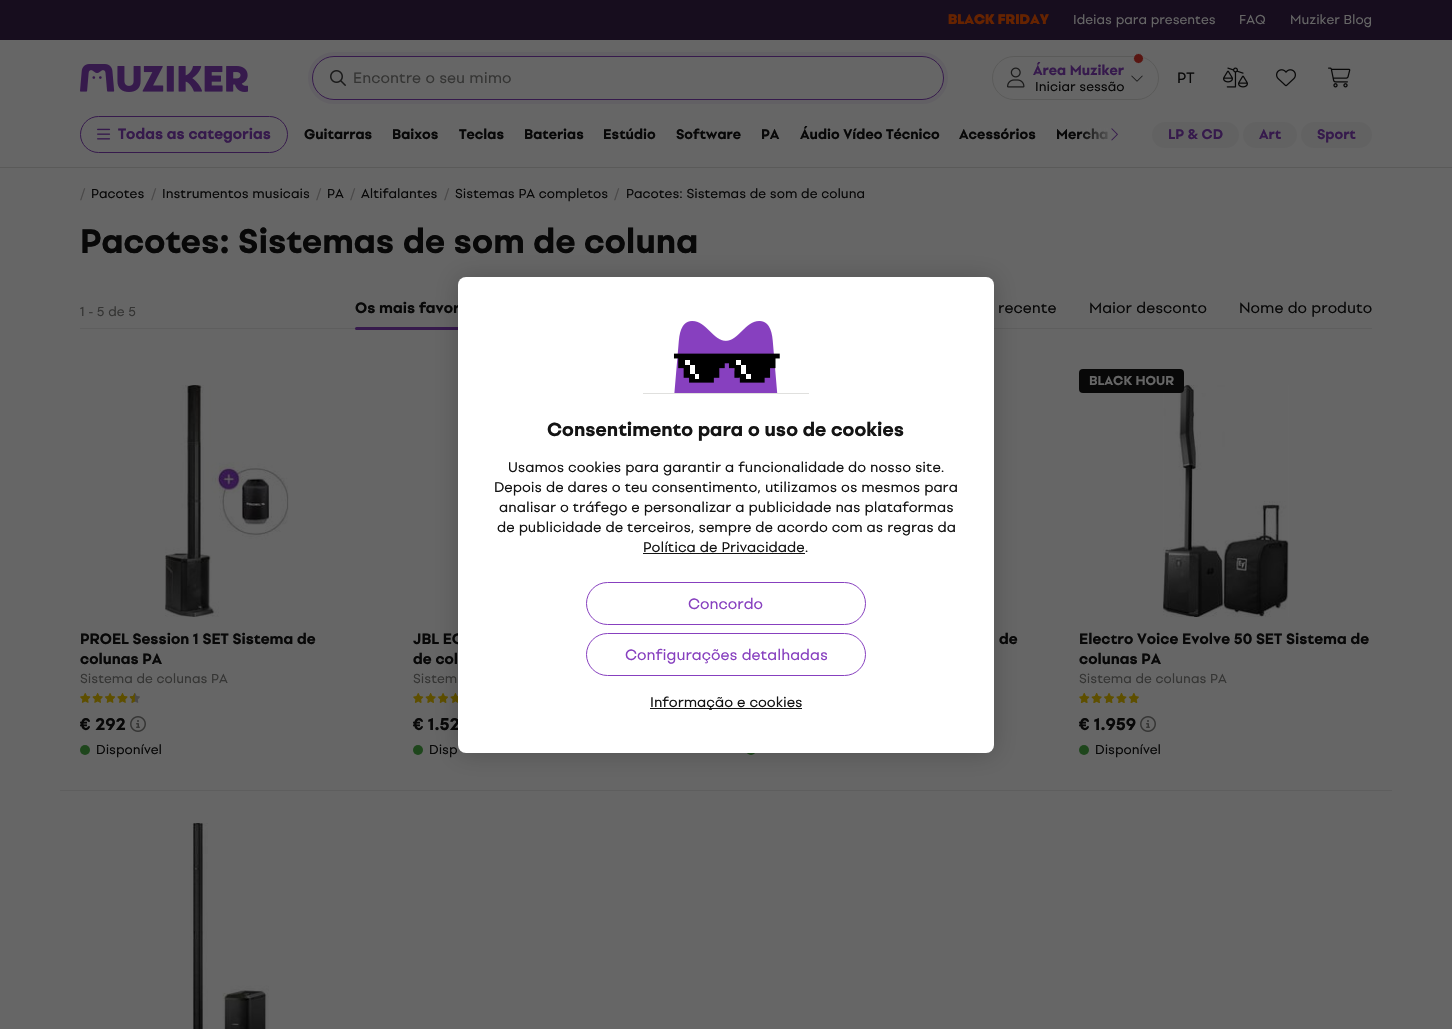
void draw(SkCanvas* c) {
SkPaint p;
p.setAntiAlias(true);
auto F=[&](const char* family, int weight, float size, bool italic = false){SkFontStyle style(weight, SkFontStyle::kNormal_Width,italic ? SkFontStyle::kItalic_Slant : SkFontStyle::kUpright_Slant);SkFont result(fontMgr->matchFamilyStyle(family, style), size);result.setSubpixel(true);return result;};
auto T=[&](const char* s, float x, float y, const SkFont& font){c->drawString(s, x, y, font, p);};
auto R=[&](float x, float y, float w, float h){c->drawRect(SkRect::MakeXYWH(x, y, w, h), p);};
auto Q=[&](float x, float y, float w, float h, float radius){c->drawRoundRect(SkRect::MakeXYWH(x, y, w, h), radius, radius, p);};
auto I=[&](const char* path, float x, float y, float w, float h){auto image = SkImages::DeferredFromEncodedData(SkData::MakeFromFileName(path));c->drawImageRect(image, SkRect::MakeXYWH(x, y, w, h), SkSamplingOptions());};
c->clear(0xff666666);
p.setColor(0xff170d1e);
R(0,0,1452,40);
auto f1 = F("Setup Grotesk",900,14);
p.setColor(0xff662300);
T("BLACK FRIDAY",948,24,f1);
auto f2 = F("Setup Grotesk",400,13);
p.setColor(0xff666666);
T("Ideias para presentes",1073,24,f2);
T("FAQ",1239,24,f2);
T("Muziker Blog",1290,24,f2);
p.setColor(0xff5a5a59);
R(0,167,1452,1);
I("1.png",80,64,168,28);
p.setStroke(true);
p.setStrokeWidth(4);
p.setColor(0xff626064);
c->drawRoundRect(SkRect::MakeXYWH(310,54,636,48),24,24,p);
p.setStrokeWidth(1);
p.setColor(0xff361a4c);
c->drawRoundRect(SkRect::MakeXYWH(312.5,56.5,631,43),21.5,21.5,p);
I("2.png",330,70,16,16);
auto f3 = F("Setup Grotesk",400,15);
p.setStroke(false);
p.setColor(0xff353534);
T("Encontre o seu mimo",353,83,f3);
p.setStroke(true);
p.setColor(0xff5a5a59);
c->drawRoundRect(SkRect::MakeXYWH(992.5,56.5,166,43),21.5,21.5,p);
p.setStroke(false);
p.setColor(0xff581511);
c->drawCircle(1138.5,58.5,5,p);
p.setStroke(true);
p.setColor(0xff666666);
c->drawCircle(1138.5,58.5,5,p);
I("3.png",1007,67,18,21);
auto f4 = F("Setup Grotesk",700,14);
p.setStroke(false);
p.setColor(0xff361a4c);
T("Área Muziker",1033,75,f4);
p.setColor(0xff080808);
T("Iniciar sessão",1035,91,f2);
I("4.png",1131,75,12,7);
T("PT",1177,83,f3);
I("5.png",1223,67,25,21);
I("6.png",1276,69,20,18);
I("7.png",1328,67,23,21);
p.setStroke(true);
p.setColor(0xff361a4c);
c->drawRoundRect(SkRect::MakeXYWH(80.5,116.5,207,36),18,18,p);
I("8.png",97,128,14,12);
auto f5 = F("Setup Grotesk",700,15);
p.setStroke(false);
T("Todas as categorias",118,139,f5);
p.setColor(0xff080808);
T("Guitarras",304,139,f4);
T("Baixos",392,139,f4);
T("Teclas",459,139,f4);
T("Baterias",524,139,f4);
T("Estúdio",603,139,f4);
T("Software",676,139,f4);
T("PA",761,139,f4);
T("Áudio Vídeo Técnico",800,139,f4);
T("Acessórios",959,139,f4);
T("Mercha",1056,139,f4);
{
const SkColor colors[] = {0xff666666,0x00666666};
const float stops[] = {.2,1};
const SkPoint ends[] = {{1124,135}, {1080,135}};
p.setShader(SkGradientShader::MakeLinear(ends, colors, stops, 2, SkTileMode::kClamp));
p.setAlpha(255);
}
R(1081,128,27,12);
I("9.png",1111,128,7,13);
p.setShader(nullptr);
p.setColor(0xff626262);
Q(1152,122,87,26,13);
p.setColor(0xff361a4c);
T("LP & CD",1168,139,f4);
p.setColor(0xff626262);
Q(1243,122,54,26,13);
p.setColor(0xff361a4c);
T("Art",1259,139,f4);
p.setColor(0xff626262);
Q(1301,122,71,26,13);
p.setColor(0xff361a4c);
T("Sport",1317,139,f4);
p.setColor(0xff4a4949);
T("/",80,198,f2);
p.setColor(0xff080808);
T("Pacotes",91,198,f2);
p.setColor(0xff4a4949);
T("/",151,198,f2);
p.setColor(0xff080808);
T("Instrumentos musicais",162,198,f2);
p.setColor(0xff4a4949);
T("/",316,198,f2);
p.setColor(0xff080808);
T("PA",327,198,f2);
p.setColor(0xff4a4949);
T("/",350,198,f2);
p.setColor(0xff080808);
T("Altifalantes",361,198,f2);
p.setColor(0xff4a4949);
T("/",444,198,f2);
p.setColor(0xff080808);
T("Sistemas PA completos",455,198,f2);
p.setColor(0xff4a4949);
T("/",614,198,f2);
p.setColor(0xff080808);
T("Pacotes: Sistemas de som de coluna",626,198,f2);
auto f6 = F("Setup Grotesk",700,34);
T("Pacotes: Sistemas de som de coluna",80,253,f6);
p.setColor(0xff5e5e5e);
R(80,328,1292,1);
p.setColor(0xff353534);
T("1 - 5 de 5",80,316,f2);
p.setColor(0xff080808);
T("Os mais favor",355,313,f5);
p.setColor(0xff361a4c);
Q(355,327,133,3,1.5);
p.setColor(0xff080808);
T("recente",998,313,f3);
T("Maior desconto",1089,313,f3);
T("Nome do produto",1239,313,f3);
p.setColor(0xff5e5e5e);
R(60,790,1332,1);
I("10.png",165,385,124,232);
p.setColor(0xff080808);
T("PROEL Session 1 SET Sistema de",80,644,f5);
T("colunas PA",80,664,f5);
p.setColor(0xff353534);
T("Sistema de colunas PA",80,683,f2);
I("11.png",80,693,60,10);
auto f7 = F("Setup Grotesk",700,17);
p.setColor(0xff080808);
T("€ 292",80,730,f7);
I("12.png",130,716,16,16);
p.setColor(0xff1e461c);
c->drawCircle(85,750,5,p);
p.setColor(0xff080808);
T("Disponível",96,754,f2);
T("JBL EO",413,644,f5);
T("de col",413,664,f5);
p.setColor(0xff353534);
T("Sistem",413,683,f2);
I("13.png",413,693,45,10);
p.setColor(0xff080808);
T("€ 1.52",413,730,f7);
p.setColor(0xff1e461c);
c->drawCircle(418,750,5,p);
p.setColor(0xff080808);
T("Disp",429,754,f2);
T("de",999,644,f5);
p.setColor(0xff1e461c);
c->drawCircle(751,750,5,p);
I("14.png",1163,385,126,232);
p.setColor(0xff080808);
Q(1079,369,105,24,4);
auto f8 = F("Setup Grotesk",700,13);
p.setColor(0xff666666);
T("BLACK HOUR",1089,385,f8);
p.setColor(0xff080808);
T("Electro Voice Evolve 50 SET Sistema de",1079,644,f5);
T("colunas PA",1079,664,f5);
p.setColor(0xff353534);
T("Sistema de colunas PA",1079,683,f2);
I("15.png",1079,693,60,10);
p.setColor(0xff080808);
T("€ 1.959",1079,730,f7);
I("12.png",1140,716,16,16);
p.setColor(0xff1e461c);
c->drawCircle(1084,750,5,p);
p.setColor(0xff080808);
T("Disponível",1095,754,f2);
I("16.png",190,823,79,206);
p.setColor(0x33000000);
p.setMaskFilter(SkMaskFilter::MakeBlur(kNormal_SkBlurStyle, 12.5));
c->drawRoundRect(SkRect::MakeXYWH(458,278,536,476),8,8,p);
p.setMaskFilter(nullptr);
p.setColor(0xffffffff);
Q(458,277,536,476,8);
p.setColor(0xffe0e0de);
R(643,393,166,1);
I("17.png",674,321,104,72);
I("18.png",673,353,107,30);
auto f9 = F("Setup Grotesk",700,19);
p.setColor(0xff141414);
T("Consentimento para o uso de cookies",547,436,f9);
auto f10 = F("Setup Grotesk",400,14);
T("Usamos cookies para garantir a funcionalidade do nosso site.",508,472,f10);
T("Depois de dares o teu consentimento, utilizamos os mesmos para",494,492,f10);
T("analisar o tráfego e personalizar a publicidade nas plataformas",499,512,f10);
T("de publicidade de terceiros, sempre de acordo com as regras da",497,532,f10);
T("Política de Privacidade.",643,552,f10);
R(643,553,162,1);
p.setStroke(true);
p.setColor(0xff8740bf);
c->drawRoundRect(SkRect::MakeXYWH(586.5,582.5,279,42),21,21,p);
p.setStroke(false);
T("Concordo",688,609,f3);
p.setStroke(true);
c->drawRoundRect(SkRect::MakeXYWH(586.5,633.5,279,42),21,21,p);
p.setStroke(false);
T("Configurações detalhadas",625,660,f3);
p.setColor(0xff141414);
R(650,708,152,1);
T("Informação e cookies",650,707,f10);
}
